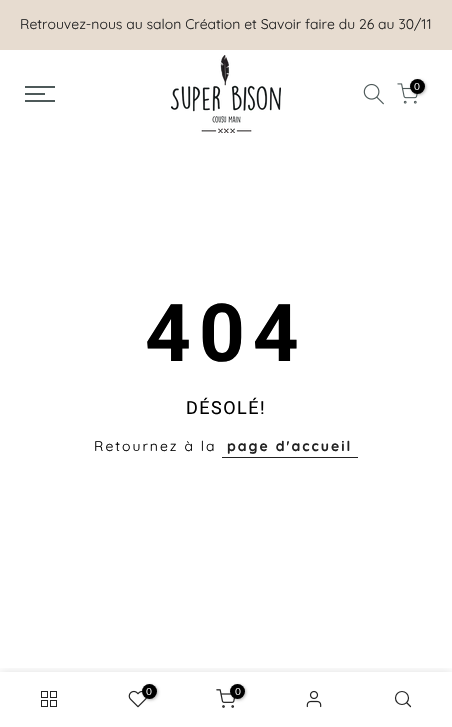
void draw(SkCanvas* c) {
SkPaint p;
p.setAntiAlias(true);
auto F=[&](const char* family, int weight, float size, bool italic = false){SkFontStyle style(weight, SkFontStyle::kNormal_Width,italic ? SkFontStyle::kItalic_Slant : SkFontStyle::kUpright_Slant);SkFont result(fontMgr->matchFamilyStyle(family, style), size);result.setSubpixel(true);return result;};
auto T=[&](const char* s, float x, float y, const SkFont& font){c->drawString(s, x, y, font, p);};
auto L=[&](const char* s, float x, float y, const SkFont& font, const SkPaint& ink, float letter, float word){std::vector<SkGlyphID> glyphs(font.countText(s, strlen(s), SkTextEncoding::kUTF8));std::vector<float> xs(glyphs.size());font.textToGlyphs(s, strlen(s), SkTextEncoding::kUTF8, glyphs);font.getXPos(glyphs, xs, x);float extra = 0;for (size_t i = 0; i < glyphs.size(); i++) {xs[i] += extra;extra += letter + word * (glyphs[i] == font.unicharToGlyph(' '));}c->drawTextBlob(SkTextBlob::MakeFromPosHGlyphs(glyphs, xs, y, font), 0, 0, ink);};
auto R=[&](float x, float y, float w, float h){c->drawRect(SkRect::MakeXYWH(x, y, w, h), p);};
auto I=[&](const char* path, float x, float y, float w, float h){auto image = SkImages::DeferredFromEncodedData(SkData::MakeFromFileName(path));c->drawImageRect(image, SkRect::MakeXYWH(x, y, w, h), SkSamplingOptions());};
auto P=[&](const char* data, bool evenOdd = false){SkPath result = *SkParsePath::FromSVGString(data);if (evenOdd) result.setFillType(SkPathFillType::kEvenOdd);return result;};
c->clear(0xffffffff);
p.setColor(0xffe7dcd0);
R(0,0,452,50);
auto f1 = F("Quicksand",400,14);
p.setColor(0xff222222);
T("Retrouvez-nous au salon Création et Savoir faire du 26 au 30/11",20,29,f1);
p.setColor(0xff4d5959);
R(25,86,30,2);
R(25,93,20,2);
R(25,100,30,2);
I("1.png",171,55,110,78);
I("2.png",363,83,21,22);
I("3.png",397,83,21,21);
p.setColor(0x4d000000);
p.setMaskFilter(SkMaskFilter::MakeBlur(kNormal_SkBlurStyle, 1.5));
c->drawRoundRect(SkRect::MakeXYWH(411,80,15,15),7.5,7.5,p);
p.setMaskFilter(nullptr);
p.setColor(0xff000000);
c->drawCircle(417.5,86.5,7.5,p);
auto f2 = F("Quicksand",400,10);
p.setColor(0xffffffff);
T("0",414,90,f2);
auto f3 = F("Roboto",700,80);
p.setColor(0xff000000);
L("404",145,361,f3,p,8,0);
auto f4 = F("Roboto",400,18);
L("DÉSOLÉ!",186,414,f4,p,1.5,0);
L("Retournez à la",94,451,f1,p,2,0);
auto f5 = F("Quicksand",700,14);
p.setColor(0xff222222);
L("page d'accueil",227,451,f5,p,2,0);
R(222,457,136,1);
c->save();
c->clipRect(SkRect::MakeXYWH(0,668,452,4));
p.setColor(0x1f000000);
p.setMaskFilter(SkMaskFilter::MakeBlur(kNormal_SkBlurStyle, 4.5));
c->drawRect(SkRect::MakeXYWH(0,672,452,55),p);
p.setMaskFilter(nullptr);
c->restore();
I("4.png",41,691,16,16);
I("5.png",128,690,19,18);
p.setColor(0x4d000000);
p.setMaskFilter(SkMaskFilter::MakeBlur(kNormal_SkBlurStyle, 1.5));
c->drawRoundRect(SkRect::MakeXYWH(143,685,15,15),7.5,7.5,p);
p.setMaskFilter(nullptr);
p.setColor(0xff000000);
c->drawCircle(149.5,691.5,7.5,p);
p.setColor(0xffffffff);
T("0",146,695,f2);
I("6.png",216,689,19,19);
p.setColor(0x4d000000);
p.setMaskFilter(SkMaskFilter::MakeBlur(kNormal_SkBlurStyle, 1.5));
c->drawRoundRect(SkRect::MakeXYWH(231,685,15,15),7.5,7.5,p);
p.setMaskFilter(nullptr);
p.setColor(0xff000000);
c->drawCircle(237.5,691.5,7.5,p);
p.setColor(0xffffffff);
T("0",235,695,f2);
I("7.png",306,690,16,18);
p.setStroke(true);
p.setStrokeWidth(1.2);
p.setColor(0xff222222);
c->drawCircle(402,698,6.5,p);
p.setStrokeCap(SkPaint::kRound_Cap);
p.setStrokeJoin(SkPaint::kRound_Join);
c->drawPath(P("M410.5 706.5l-3.5-3.5"),p);
}
